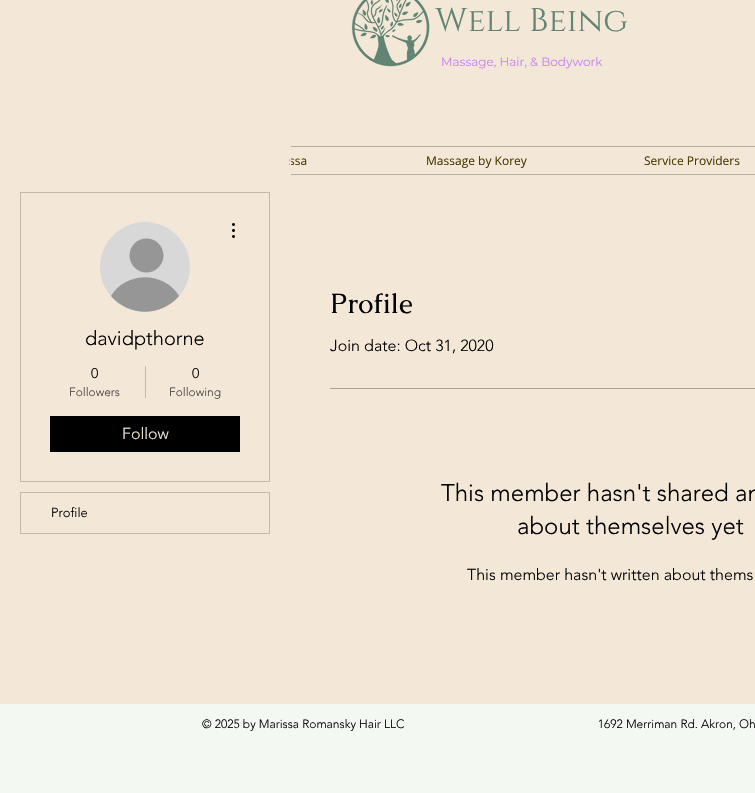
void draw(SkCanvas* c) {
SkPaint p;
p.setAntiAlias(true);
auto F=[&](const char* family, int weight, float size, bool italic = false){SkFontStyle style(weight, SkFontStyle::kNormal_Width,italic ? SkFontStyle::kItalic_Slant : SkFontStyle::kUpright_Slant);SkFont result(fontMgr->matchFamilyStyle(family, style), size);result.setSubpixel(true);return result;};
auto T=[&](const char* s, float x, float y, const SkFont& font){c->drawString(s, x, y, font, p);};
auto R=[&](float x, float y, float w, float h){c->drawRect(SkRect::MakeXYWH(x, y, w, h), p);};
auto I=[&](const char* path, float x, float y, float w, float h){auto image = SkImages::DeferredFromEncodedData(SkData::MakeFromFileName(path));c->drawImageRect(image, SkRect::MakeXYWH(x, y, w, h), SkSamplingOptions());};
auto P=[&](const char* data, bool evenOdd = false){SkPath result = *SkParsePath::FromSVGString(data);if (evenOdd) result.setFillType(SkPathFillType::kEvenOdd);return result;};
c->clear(0xfff3e8d8);
I("1.png",351,0,79,67);
auto f1 = F("Cinzel",400,33);
p.setColor(0xff628474);
T("Well Being",435,31,f1);
auto f2 = F("Montserrat",400,12);
p.setColor(0xffc786ed);
T("Massage, Hair, & Bodywork",441,66,f2);
p.setColor(0xffb6aea2);
R(291,146,464,1);
R(291,174,464,1);
auto f3 = F("Open Sans",400,12);
p.setColor(0xff483c01);
T("ssa",289,165,f3);
T("Massage by Korey",426,165,f3);
T("Service Providers",644,165,f3);
p.setColor(0xfff3e8d8);
R(290,158,1,7);
p.setStroke(true);
p.setStrokeWidth(1);
p.setColor(0xffc2baad);
c->drawRect(SkRect::MakeXYWH(20.5,192.5,249,289),p);
p.setStroke(false);
p.setColor(0xffd8d8d8);
c->drawCircle(145,267,45,p);
p.setColor(0xff969696);
c->drawCircle(146.5,255.5,17,p);
c->drawPath(P("M179 296c-18 21-50 21-68 0c15-25 53-25 68 0z"),p);
I("2.png",232,223,3,15);
auto f4 = F("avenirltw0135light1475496",300,20);
p.setColor(0xff000000);
T("davidpthorne",85,345,f4);
auto f5 = F("avenirltw0135light1475496",300,14);
T("0",91,378,f5);
auto f6 = F("avenirltw0135light1475496",300,12);
p.setColor(0xff494641);
T("Followers",69,396,f6);
p.setColor(0xffc2baad);
R(145,366,1,32);
p.setColor(0xff000000);
T("0",192,378,f5);
p.setColor(0xff494641);
T("Following",169,396,f6);
p.setColor(0xff000000);
R(50,416,190,36);
auto f7 = F("avenirltw0135light1475496",300,16);
p.setColor(0xfff3e8d8);
T("Follow",122,439,f7);
p.setStroke(true);
p.setColor(0xffc2baad);
c->drawRect(SkRect::MakeXYWH(20.5,492.5,249,41),p);
auto f8 = F("avenirltw0135light1475496",300,13);
p.setStroke(false);
p.setColor(0xff000000);
T("Profile",51,517,f8);
auto f9 = F("Caudex",400,28);
T("Profile",330,313,f9);
T("Join date: Oct 31, 2020",330,351,f7);
p.setColor(0xffaaa297);
R(330,388,425,1);
auto f10 = F("avenirltw0135light1475496",300,24);
p.setColor(0xff000000);
T("This member hasn't shared an",441,501,f10);
T("about themselves yet",517,534,f10);
T("This member hasn't written about thems",467,580,f7);
p.setColor(0xfff4f8f3);
R(0,704,755,89);
p.setColor(0xff000000);
T("© 2025 by Marissa Romansky Hair LLC                                                              1692 Merriman Rd. Akron, Oh",202,728,f6);
}
